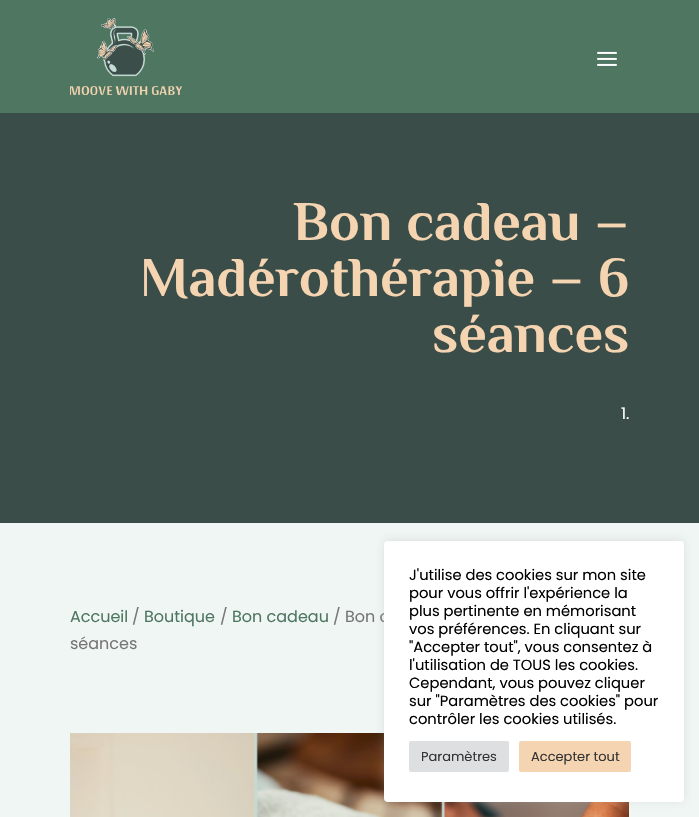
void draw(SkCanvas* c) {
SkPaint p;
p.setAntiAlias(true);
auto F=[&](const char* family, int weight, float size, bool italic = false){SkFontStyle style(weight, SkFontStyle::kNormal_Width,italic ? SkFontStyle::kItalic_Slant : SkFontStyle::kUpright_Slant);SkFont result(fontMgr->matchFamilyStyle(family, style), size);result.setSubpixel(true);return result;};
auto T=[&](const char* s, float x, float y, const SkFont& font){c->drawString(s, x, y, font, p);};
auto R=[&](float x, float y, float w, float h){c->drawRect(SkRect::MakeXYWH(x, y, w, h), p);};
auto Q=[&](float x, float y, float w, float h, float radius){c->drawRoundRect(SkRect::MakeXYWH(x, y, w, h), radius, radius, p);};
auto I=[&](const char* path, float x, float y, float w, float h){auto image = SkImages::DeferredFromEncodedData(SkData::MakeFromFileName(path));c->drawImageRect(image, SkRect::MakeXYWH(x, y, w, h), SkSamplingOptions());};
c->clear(0xff3b4d48);
p.setColor(0xff4f7661);
R(0,0,699,113);
I("1.png",70,18,112,77);
I("2.png",597,51,20,15);
auto f1 = F("Philosopher",700,56);
p.setColor(0xfff5d4b1);
T("Bon cadeau –",293,240,f1);
T("Madérothérapie – 6",140,296,f1);
T("séances",432,352,f1);
auto f2 = F("Poppins",400,16);
p.setColor(0xffffffff);
T("1.",621,419,f2);
p.setColor(0xffeff6f4);
R(0,523,699,294);
p.setColor(0xff4f7661);
T("Accueil",70,622,f2);
p.setColor(0xff767676);
T("/",132,622,f2);
p.setColor(0xff4f7661);
T("Boutique",144,622,f2);
p.setColor(0xff767676);
T("/",220,622,f2);
p.setColor(0xff4f7661);
T("Bon cadeau",232,622,f2);
p.setColor(0xff767676);
T("/ Bon c",333,622,f2);
T("séances",70,649,f2);
I("3.png",70,733,559,84);
p.setColor(0x4dacabab);
p.setMaskFilter(SkMaskFilter::MakeBlur(kNormal_SkBlurStyle, 5));
c->drawRoundRect(SkRect::MakeXYWH(384,540,300,261),4,4,p);
p.setMaskFilter(nullptr);
p.setColor(0xffffffff);
Q(384,541,300,261,4);
auto f3 = F("Poppins",400,14.7);
p.setColor(0xff000000);
T("J'utilise des cookies sur mon site",409,580,f3);
T("pour vous offrir l'expérience la",409,598,f3);
T("plus pertinente en mémorisant",409,616,f3);
T("vos préférences. En cliquant sur",409,634,f3);
T("\"Accepter tout\", vous consentez à",409,652,f3);
T("l'utilisation de TOUS les cookies.",409,670,f3);
T("Cependant, vous pouvez cliquer",409,688,f3);
T("sur \"Paramètres des cookies\" pour",409,706,f3);
T("contrôler les cookies utilisés.",409,724,f3);
p.setColor(0xffdedfe0);
Q(409,741,100,31,2);
auto f4 = F("Poppins",400,13);
p.setColor(0xff333333);
T("Paramètres",421,761,f4);
p.setColor(0xfff5d4b1);
Q(519,741,112,31,2);
p.setColor(0xff333333);
T("Accepter tout",531,761,f4);
}
